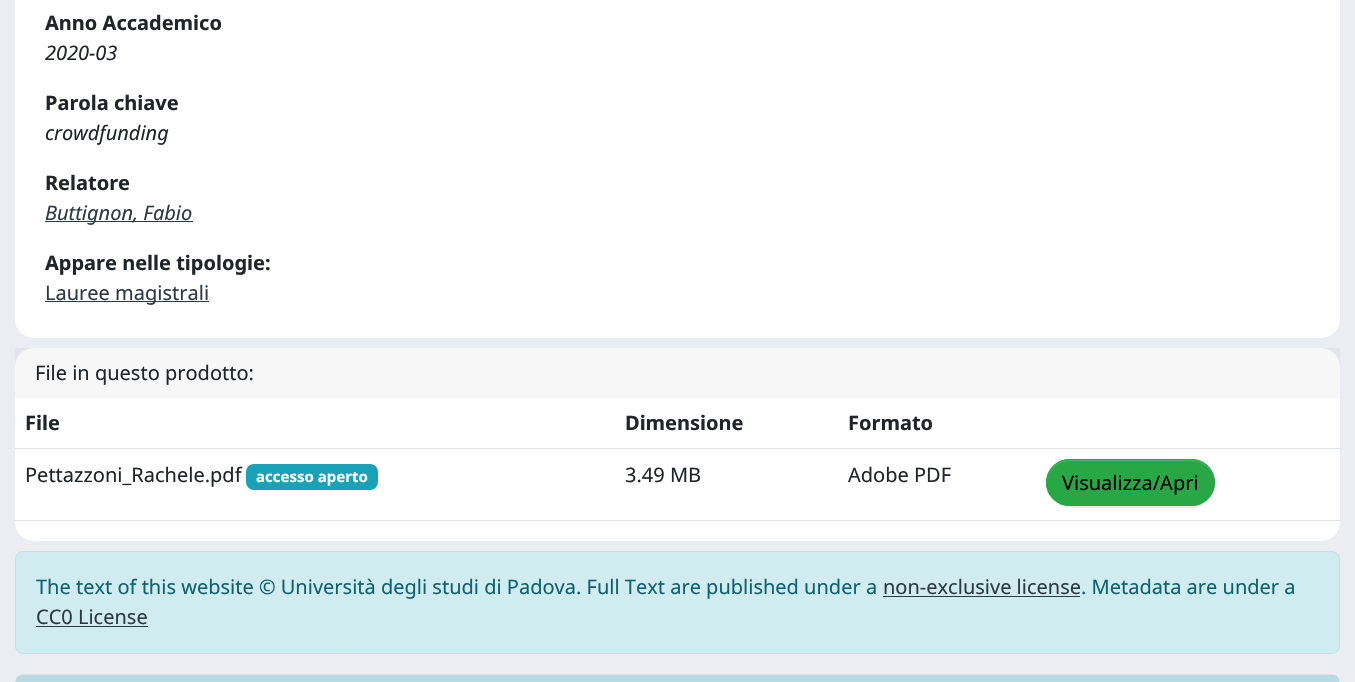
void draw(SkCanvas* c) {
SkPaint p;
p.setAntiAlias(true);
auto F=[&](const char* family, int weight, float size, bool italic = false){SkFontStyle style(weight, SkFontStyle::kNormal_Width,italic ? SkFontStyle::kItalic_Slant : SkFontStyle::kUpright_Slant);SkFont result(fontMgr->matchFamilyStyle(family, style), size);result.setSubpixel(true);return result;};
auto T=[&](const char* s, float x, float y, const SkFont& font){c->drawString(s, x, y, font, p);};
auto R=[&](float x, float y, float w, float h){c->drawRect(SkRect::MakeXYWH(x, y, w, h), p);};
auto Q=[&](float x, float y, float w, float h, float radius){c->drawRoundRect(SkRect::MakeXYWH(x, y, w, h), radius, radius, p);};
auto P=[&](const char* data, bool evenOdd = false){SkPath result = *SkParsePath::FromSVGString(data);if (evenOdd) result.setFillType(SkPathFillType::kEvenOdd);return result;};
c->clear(0xffecedf2);
p.setColor(0xffffffff);
Q(15,-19,1325,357,19);
auto f1 = F("Noto Sans",700,20);
p.setColor(0xff212529);
T("Anno Accademico",45,30,f1);
auto f2 = F("Noto Sans",400,20,true);
T("2020-03",45,60,f2);
T("Parola chiave",45,110,f1);
T("crowdfunding",45,140,f2);
T("Relatore",45,190,f1);
p.setColor(0xff2d3a42);
R(45,221,148,1);
T("Buttignon, Fabio",45,220,f2);
p.setColor(0xff212529);
T("Appare nelle tipologie:",45,270,f1);
p.setColor(0xff2d3a42);
R(45,301,164,1);
auto f3 = F("Noto Sans",400,20);
T("Lauree magistrali",45,300,f3);
p.setColor(0xffffffff);
Q(15,348,1325,193,19);
p.setColor(0x08000000);
R(15,348,1325,50);
p.setColor(0xff212529);
T("File in questo prodotto:",35,380,f3);
T("File",25,430,f1);
T("Dimensione",625,430,f1);
T("Formato",848,430,f1);
p.setColor(0xffdee2e6);
R(15,448,1326,1);
p.setColor(0xff212529);
T("Pettazzoni_Rachele.pdf",25,482,f3);
p.setColor(0xff17a2b8);
Q(246,464,132,26,8);
auto f4 = F("Noto Sans",700,15);
p.setColor(0xffffffff);
T("accesso aperto",256,482,f4);
p.setColor(0xff212529);
T("3.49 MB",625,482,f3);
T("Adobe PDF",848,482,f3);
p.setColor(0xffdee2e6);
R(15,520,1326,1);
p.setColor(0x12000000);
p.setMaskFilter(SkMaskFilter::MakeBlur(kNormal_SkBlurStyle, .5));
c->drawRoundRect(SkRect::MakeXYWH(1046,460,169,48),24,24,p);
p.setMaskFilter(nullptr);
p.setColor(0xff28a745);
Q(1046,459,169,47,23.5);
p.setColor(0xff48b461);
c->drawPath(P("M1070 461h121c13 0 23 10 23 22v-1c0-12-10-22-22-22h-122c-12 0-22 10-22 22v1c0-12 10-22 22-22z"),p);
p.setStroke(true);
p.setStrokeWidth(1);
p.setColor(0xff28a745);
c->drawRoundRect(SkRect::MakeXYWH(1046.5,459.5,168,46),23,23,p);
p.setStroke(false);
p.setColor(0xff000000);
T("Visualizza/Apri",1062,490,f3);
p.setColor(0xffd1ecf1);
c->drawRoundRect(SkRect::MakeXYWH(15.5,551.5,1324,102),7.5,7.5,p);
p.setStroke(true);
p.setColor(0xffb9e3ea);
c->drawRoundRect(SkRect::MakeXYWH(15.5,551.5,1324,102),7.5,7.5,p);
p.setStroke(false);
p.setColor(0xff0e616e);
T("The text of this website © Università degli studi di Padova. Full Text are published under a",36,594,f3);
p.setColor(0xff2d3a42);
T("non-exclusive license",883,594,f3);
R(883,596,197,1);
p.setColor(0xff0e616e);
T(". Metadata are under a",1081,594,f3);
p.setColor(0xff2d3a42);
T("CC0 License",36,624,f3);
R(36,626,112,1);
p.setStroke(true);
p.setColor(0xffdee2e6);
c->drawRoundRect(SkRect::MakeXYWH(15.5,674.5,1324,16),7.5,7.5,p);
p.setStroke(false);
p.setColor(0x4017a2b8);
Q(16,675,1323,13,6);
}
